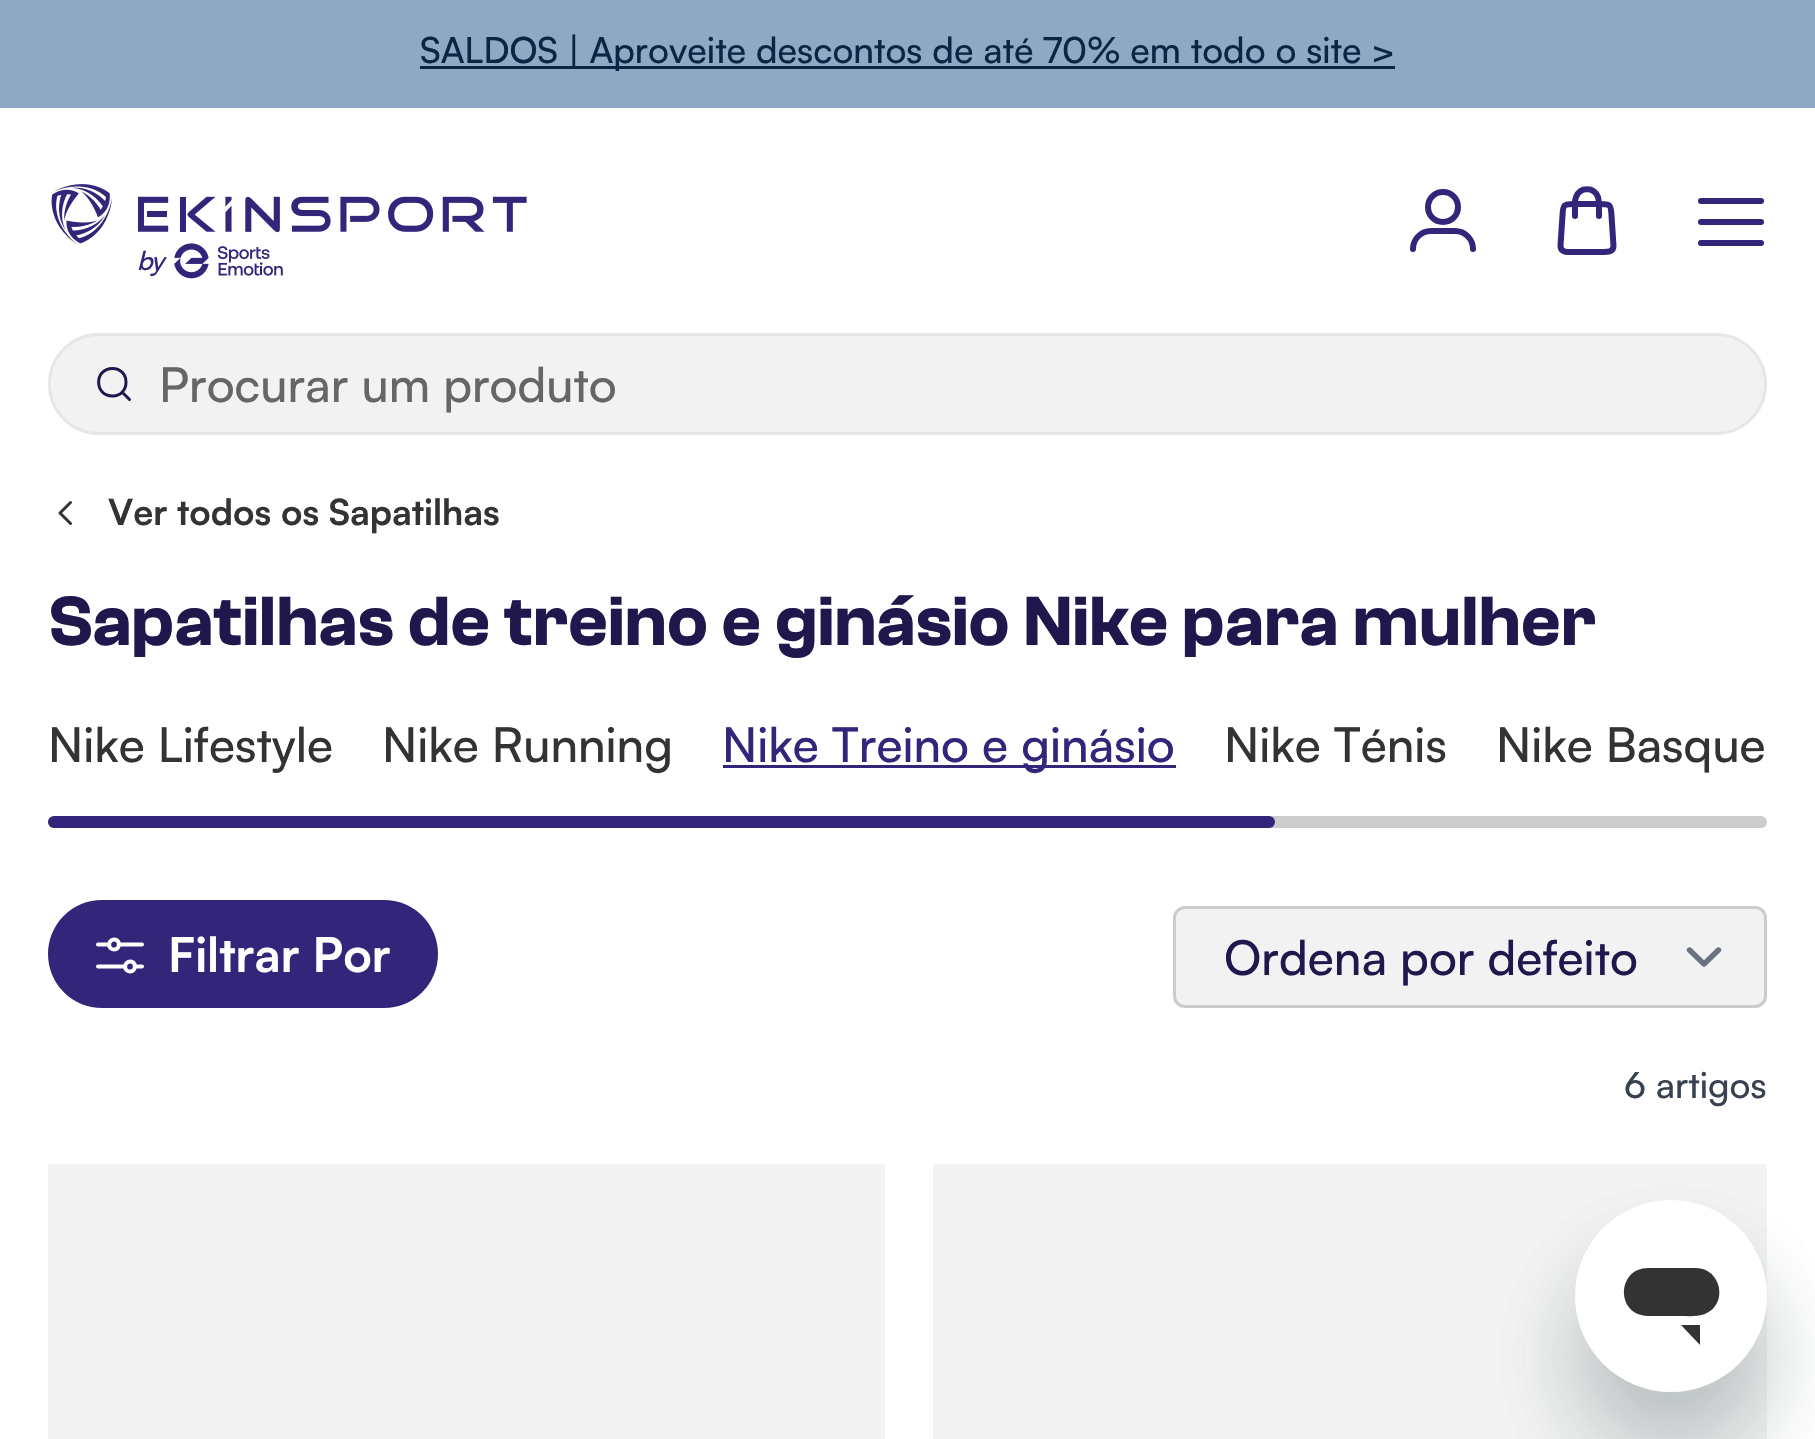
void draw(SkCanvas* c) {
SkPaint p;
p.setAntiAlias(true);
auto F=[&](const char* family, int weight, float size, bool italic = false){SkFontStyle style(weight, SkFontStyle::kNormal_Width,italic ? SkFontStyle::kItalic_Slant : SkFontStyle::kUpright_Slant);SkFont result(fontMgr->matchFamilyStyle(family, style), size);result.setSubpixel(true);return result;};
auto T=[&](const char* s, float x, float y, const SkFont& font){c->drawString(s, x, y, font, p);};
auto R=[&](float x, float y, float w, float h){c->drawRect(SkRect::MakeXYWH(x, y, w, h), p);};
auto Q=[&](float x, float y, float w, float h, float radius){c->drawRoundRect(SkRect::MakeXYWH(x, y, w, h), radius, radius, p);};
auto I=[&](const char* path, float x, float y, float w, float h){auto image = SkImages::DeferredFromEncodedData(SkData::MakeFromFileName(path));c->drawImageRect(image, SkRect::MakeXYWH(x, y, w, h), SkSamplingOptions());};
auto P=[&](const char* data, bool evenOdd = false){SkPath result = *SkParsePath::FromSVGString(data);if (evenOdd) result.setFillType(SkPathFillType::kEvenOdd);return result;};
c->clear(0xffffffff);
p.setColor(0xff8da9c4);
R(0,0,1815,108);
p.setColor(0xff0b2545);
R(420,66,975,3);
auto f1 = F("Satoshi",500,36);
T("SALDOS | Aproveite descontos de até 70% em todo o site >",420,63,f1);
p.setStroke(true);
p.setStrokeWidth(6);
p.setColor(0xff33257a);
c->drawPath(P("M1443 222c8.5 0 15-6.5 15-15c0-8.5-6.5-15-15-15c-8.5 0-15 6.5-15 15c0 8.5 6.5 15 15 15z"),p);
p.setStrokeCap(SkPaint::kRound_Cap);
p.setStrokeJoin(SkPaint::kRound_Join);
c->drawPath(P("M1413 249c0-10 8-18 18-18h24c10 0 18 8 18 18"),p);
c->drawPath(P("M1560.5 245.5l2-30c.5-11 1-11.5 12-11.5h24.5c11.5 0 12 .5 12.5 11.5l2 30.5c0 7-8 6-13 6h-27.5c-4.5 0-13 1-12.5-6.5z"),p);
c->drawPath(P("M1575 216v-9c0-3.5-.5-6.5 1-10c4-10.5 18-10.5 22 0c1 3.5 1 6.5 1 10v9"),p);
c->drawPath(P("M1701 222h60m-60-21h60m-60 42h60"),p);
I("1.png",51,184,476,95);
auto f2 = F("Satoshi",500,26,true);
p.setStroke(false);
T("b",137,270,f2);
T("y",151,270,f2);
p.setColor(0xfff2f2f2);
c->drawRoundRect(SkRect::MakeXYWH(49.5,334.5,1716,99),49.5,49.5,p);
p.setStroke(true);
p.setStrokeWidth(3);
p.setStrokeCap(SkPaint::kButt_Cap);
p.setStrokeJoin(SkPaint::kMiter_Join);
p.setColor(0xffe6e6e6);
c->drawRoundRect(SkRect::MakeXYWH(49.5,334.5,1716,99),49.5,49.5,p);
p.setStrokeCap(SkPaint::kRound_Cap);
p.setStrokeJoin(SkPaint::kRound_Join);
p.setColor(0xff20174d);
c->drawPath(P("M112.5 396c18 0 18-27.5 0-27.5c-18.5 0-18.5 27.5 0 27.5zm17 3.5l-7.5-7.5"),p);
auto f3 = F("Satoshi",500,48);
p.setStroke(false);
p.setColor(0xff666666);
T("Procurar um produto",159,402,f3);
p.setStroke(true);
p.setColor(0xff333333);
c->drawPath(P("M70.5 523.5l-10.5-10.5l10.5-10.5"),p);
auto f4 = F("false",700,36);
p.setStroke(false);
T("Ver todos os Sapatilhas",108,525,f4);
auto f5 = F("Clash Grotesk",600,72);
p.setColor(0xff20174d);
T("Sapatilhas de treino e ginásio Nike para mulher",48,645,f5);
p.setColor(0xff333333);
T("Nike Lifestyle",48,762,f3);
T("Nike Running",382,762,f3);
p.setColor(0xff33257a);
R(723,765,453,3);
T("Nike Treino e ginásio",722,762,f3);
p.setColor(0xff333333);
T("Nike Ténis",1224,762,f3);
T("Nike Basque",1496,762,f3);
p.setColor(0xffcccccc);
Q(48,816,1719,12,6);
p.setColor(0xff33257a);
Q(48,816,1227,12,6);
Q(48,900,390,108,54);
c->save();
c->clipRect(SkRect::MakeXYWH(96,930,48,48));
p.setStroke(true);
p.setStrokeWidth(4);
p.setColor(0xffffffff);
c->drawPath(P("M152 923.5h-64v64h64zm-27 43h-27m44 0h-7"),p);
c->restore();
c->drawPath(P("M130 971.5c6.5 0 6.5-10.5 0-10c-6.5 .5-6.5 10 0 10zm-21-27h-11m44 0h-23m-5 5c6.5 0 6.5-10.5 0-10c-6.5 .5-6.5 10 0 10z"),p);
auto f6 = F("false",700,48);
p.setStroke(false);
T("Filtrar Por",168,972,f6);
p.setColor(0xfff2f2f2);
Q(1173,906,594,102,12);
p.setStroke(true);
p.setStrokeWidth(5.4);
p.setColor(0xff6b7280);
c->drawPath(P("M1689.5 950l14.5 14l14.5-14"),p);
p.setStrokeWidth(3);
p.setStrokeCap(SkPaint::kButt_Cap);
p.setStrokeJoin(SkPaint::kMiter_Join);
p.setColor(0xffcccccc);
c->drawRoundRect(SkRect::MakeXYWH(1174.5,907.5,591,99),10.5,10.5,p);
p.setStroke(false);
p.setColor(0xff20174d);
T("Ordena por defeito",1224,975,f3);
p.setColor(0xff374151);
T("6 artigos",1624,1098,f1);
p.setColor(0xfff3f3f3);
R(48,1164,837,275);
R(933,1164,834,275);
p.setColor(0x2617494d);
p.setMaskFilter(SkMaskFilter::MakeBlur(kNormal_SkBlurStyle, 45));
c->drawRoundRect(SkRect::MakeXYWH(1575,1260,192,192),96,96,p);
p.setMaskFilter(nullptr);
p.setColor(0x26242424);
p.setMaskFilter(SkMaskFilter::MakeBlur(kNormal_SkBlurStyle, 45));
c->drawRoundRect(SkRect::MakeXYWH(1575,1260,192,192),96,96,p);
p.setMaskFilter(nullptr);
p.setColor(0xffffffff);
c->drawCircle(1671,1296,96,p);
p.setColor(0xff333333);
c->drawPath(P("M1681 1325l19 20v-20zm-33-57c-31 0-33 47 0 48h32c8 0 17 1 25-2c24-10 16-46-9-46z"),p);
}
